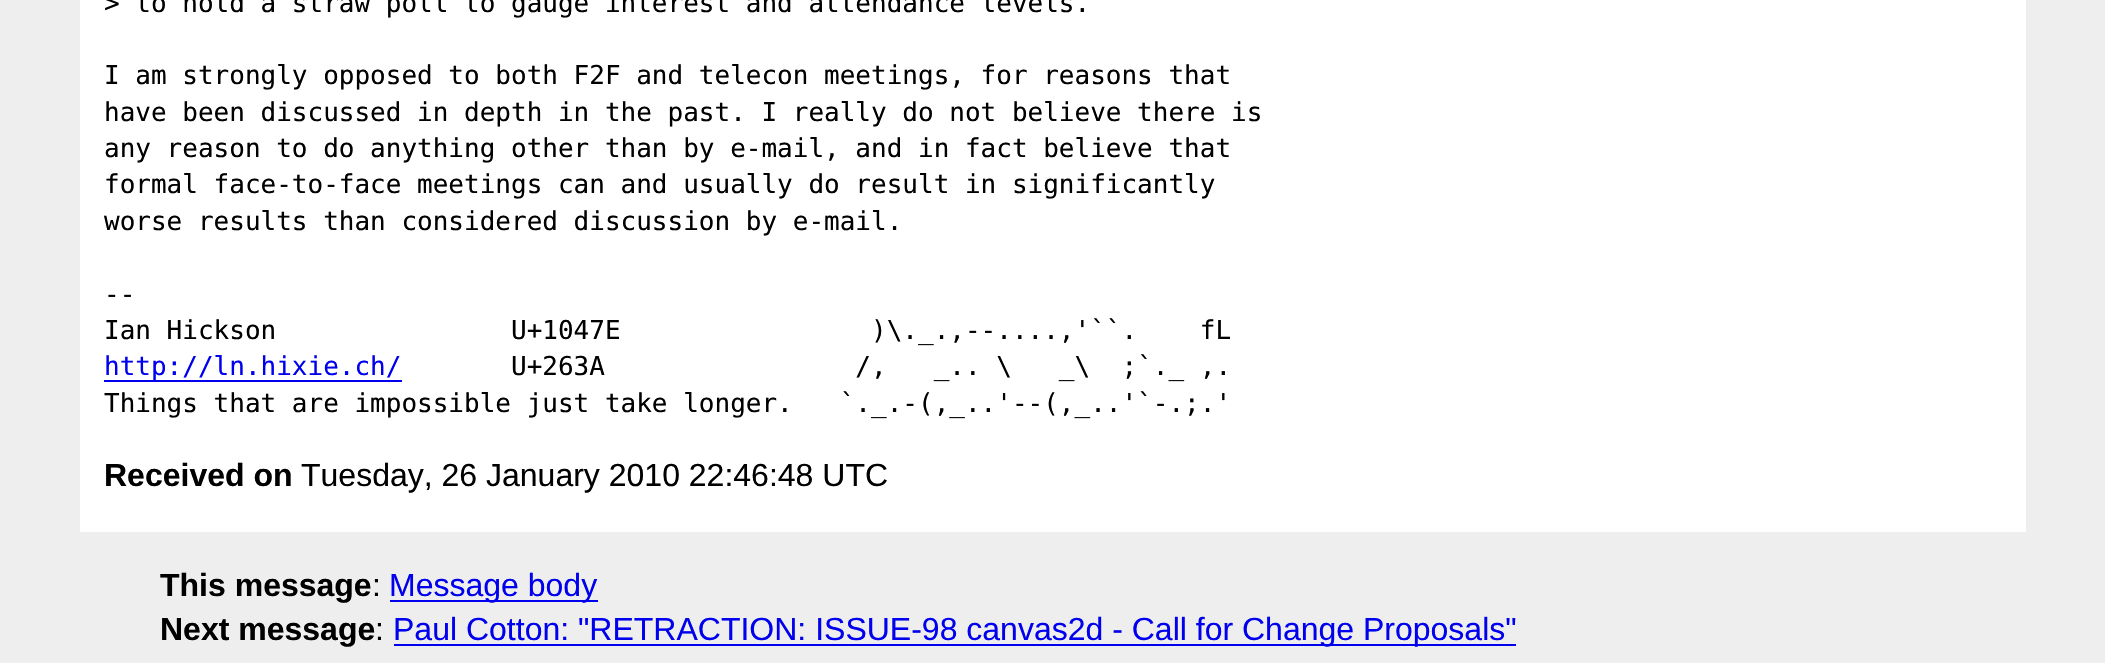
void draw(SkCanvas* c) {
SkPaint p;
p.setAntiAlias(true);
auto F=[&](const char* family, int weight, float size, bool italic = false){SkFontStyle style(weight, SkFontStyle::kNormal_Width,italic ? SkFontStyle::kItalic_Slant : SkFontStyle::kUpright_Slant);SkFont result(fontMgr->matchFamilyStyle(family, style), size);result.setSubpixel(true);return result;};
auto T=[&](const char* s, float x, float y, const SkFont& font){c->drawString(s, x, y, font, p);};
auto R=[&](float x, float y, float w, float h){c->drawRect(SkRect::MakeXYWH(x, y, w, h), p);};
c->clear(0xffeeeeee);
p.setColor(0xffffffff);
R(80,0,1946,532);
auto f1 = F("DejaVu Sans Mono",400,26);
p.setColor(0xff000000);
T("> to hold a straw poll to gauge interest and attendance levels.",104,12,f1);
T("I am strongly opposed to both F2F and telecon meetings, for reasons that",104,84,f1);
T("have been discussed in depth in the past. I really do not believe there is",104,121,f1);
T("any reason to do anything other than by e-mail, and in fact believe that",104,157,f1);
T("formal face-to-face meetings can and usually do result in significantly",104,193,f1);
T("worse results than considered discussion by e-mail.",104,230,f1);
T("--",104,303,f1);
T("Ian Hickson               U+1047E                )\\._.,--....,'``.    fL",104,339,f1);
p.setColor(0xff0000ee);
R(104,380,298,2);
T("http://ln.hixie.ch/",104,375,f1);
p.setColor(0xff000000);
T("U+263A                /,   _.. \\   _\\  ;`._ ,.",511,375,f1);
T("Things that are impossible just take longer.   `._.-(,_..'--(,_..'`-.;.'",104,412,f1);
auto f2 = F("Liberation Sans",700,32);
T("Received on",104,486,f2);
auto f3 = F("Liberation Sans",400,32);
T("Tuesday, 26 January 2010 22:46:48 UTC",301,486,f3);
T("This message",160,596,f2);
T(":",372,596,f3);
p.setColor(0xff0000ee);
R(390,600,208,2);
T("Message body",389,596,f3);
p.setColor(0xff000000);
T("Next message",160,640,f2);
T(":",375,640,f3);
p.setColor(0xff0000ee);
R(394,644,1122,2);
T("Paul Cotton: \"RETRACTION: ISSUE-98 canvas2d - Call for Change Proposals\"",393,640,f3);
}
